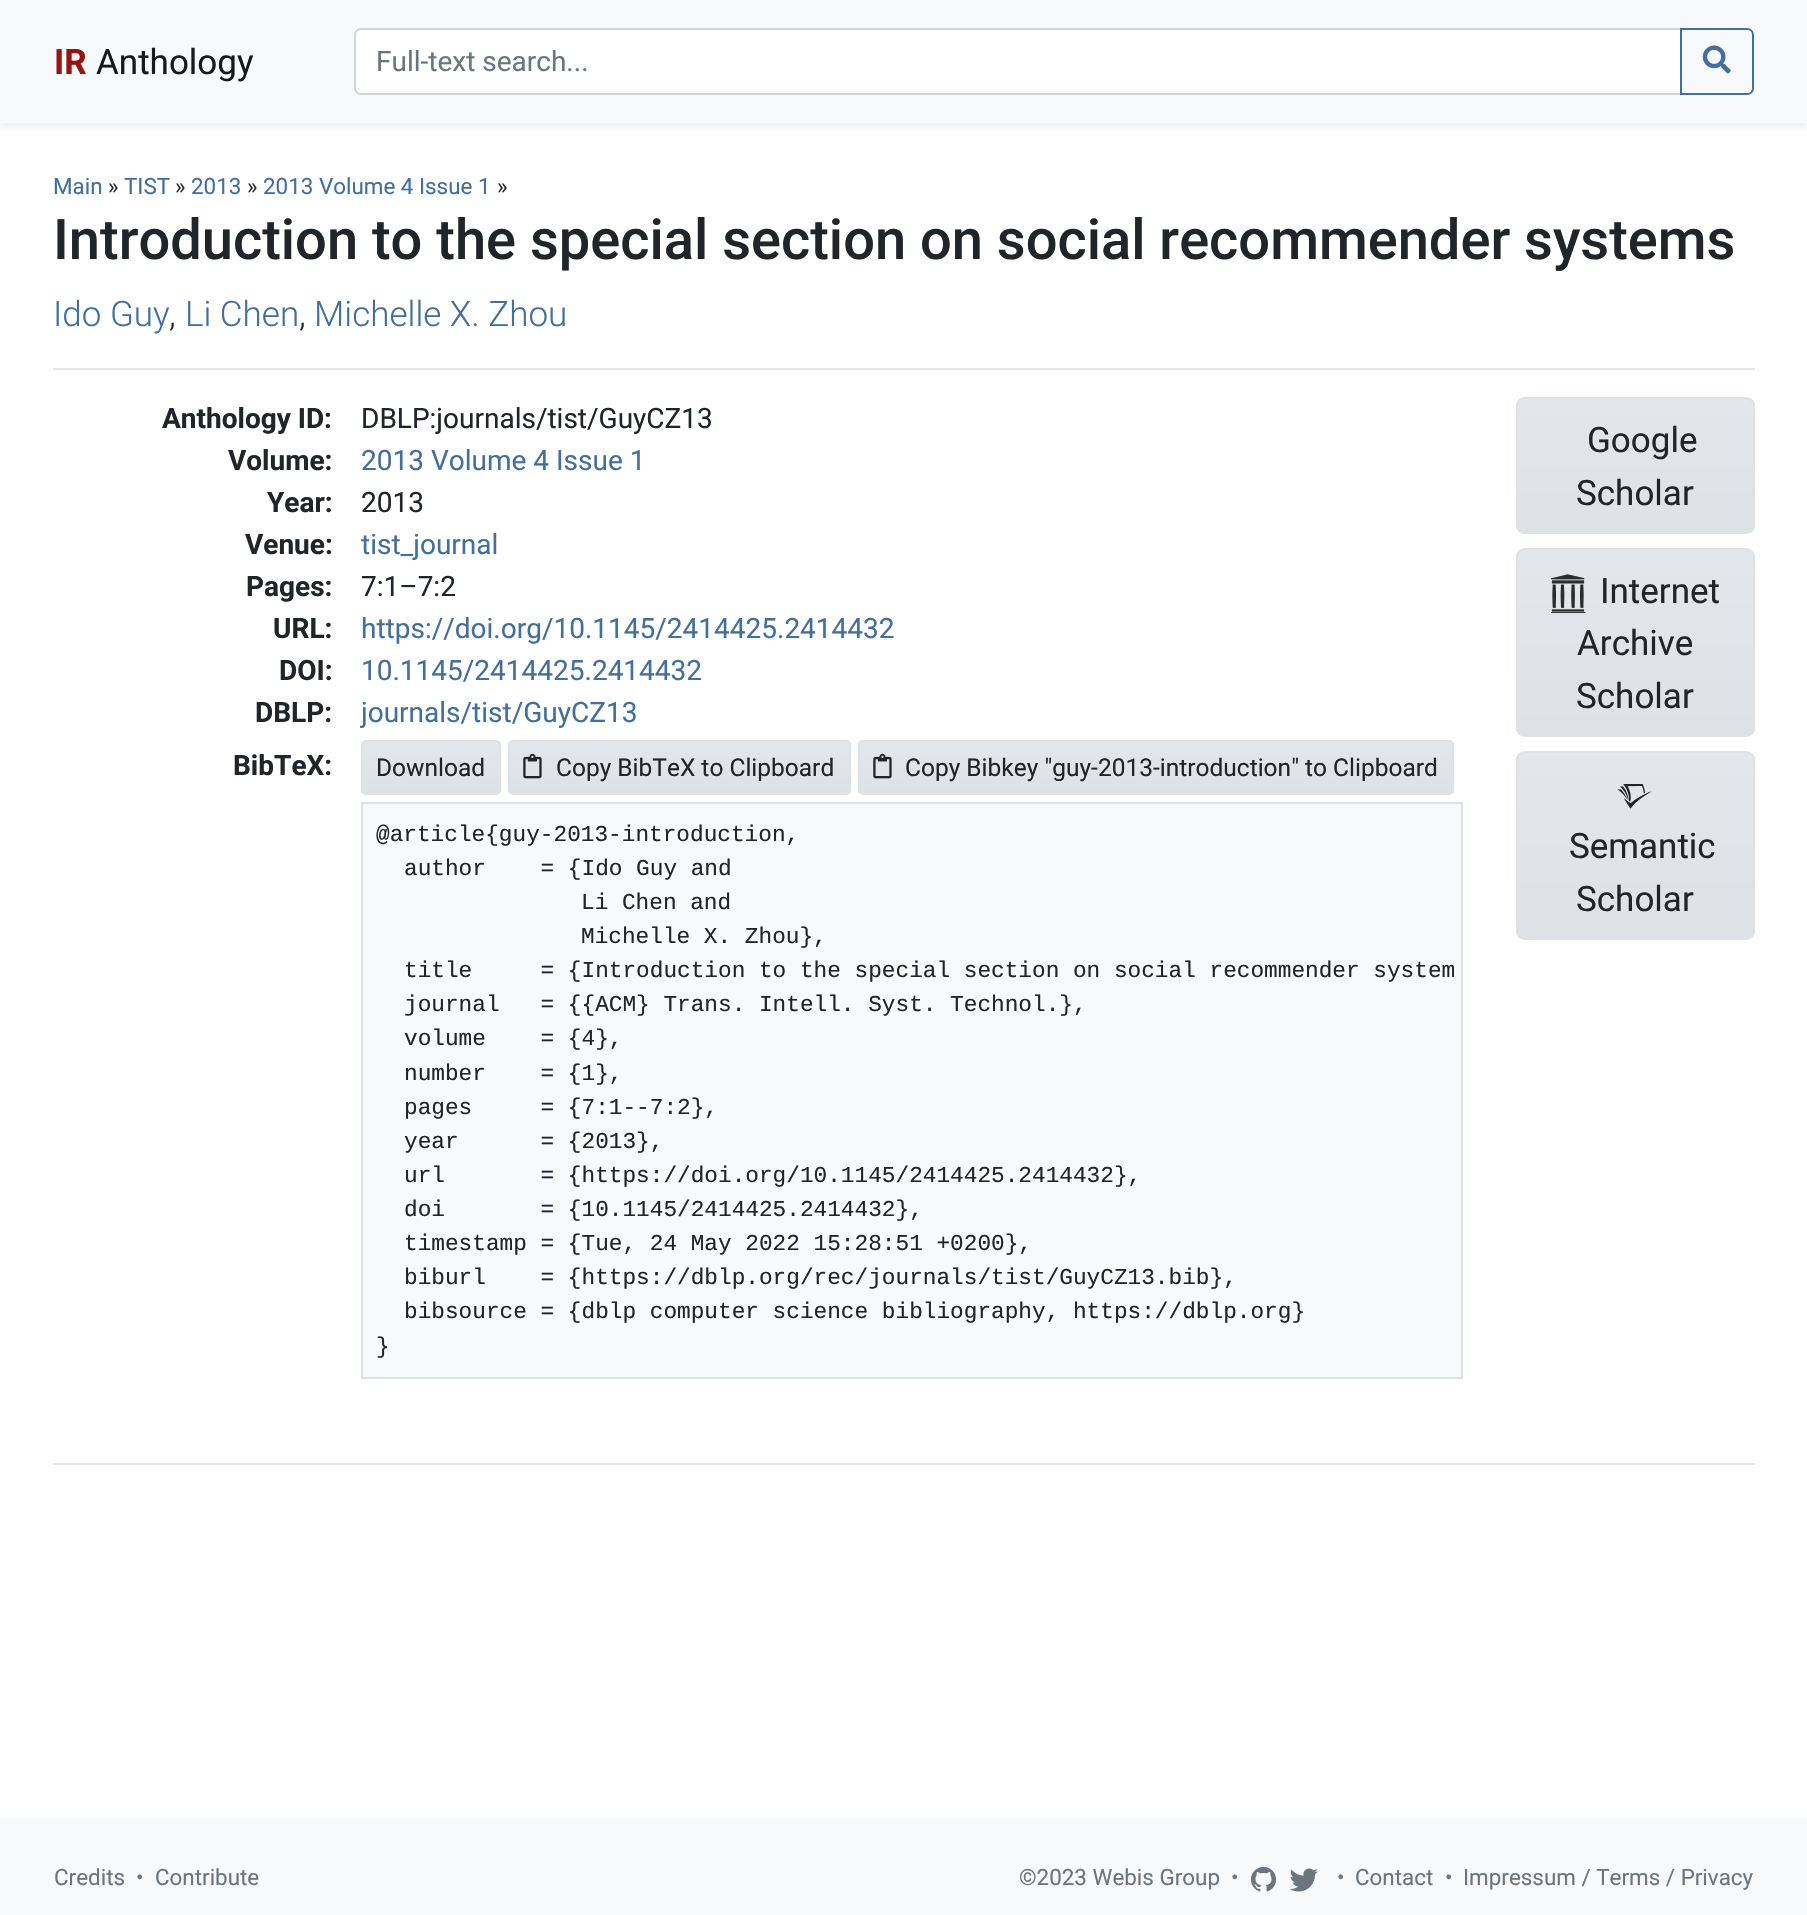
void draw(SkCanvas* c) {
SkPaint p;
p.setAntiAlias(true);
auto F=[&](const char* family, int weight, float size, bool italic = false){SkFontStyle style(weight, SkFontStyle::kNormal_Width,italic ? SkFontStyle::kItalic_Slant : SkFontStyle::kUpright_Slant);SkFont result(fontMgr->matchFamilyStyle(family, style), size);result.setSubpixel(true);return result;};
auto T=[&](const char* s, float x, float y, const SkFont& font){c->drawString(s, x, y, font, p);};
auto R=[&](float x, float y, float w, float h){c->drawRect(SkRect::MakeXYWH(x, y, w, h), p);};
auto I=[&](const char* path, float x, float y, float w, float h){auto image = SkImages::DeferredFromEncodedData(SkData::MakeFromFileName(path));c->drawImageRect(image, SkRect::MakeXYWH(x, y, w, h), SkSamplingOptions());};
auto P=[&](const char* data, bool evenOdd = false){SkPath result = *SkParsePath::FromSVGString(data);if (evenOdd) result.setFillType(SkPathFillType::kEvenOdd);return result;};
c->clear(0xffffffff);
p.setColor(0x12000000);
p.setMaskFilter(SkMaskFilter::MakeBlur(kNormal_SkBlurStyle, 3.5));
c->drawRect(SkRect::MakeXYWH(0,4,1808,122),p);
p.setMaskFilter(nullptr);
p.setColor(0xfff8f9fa);
R(0,0,1807,123);
auto f1 = F("Roboto",700,35);
p.setColor(0xff951515);
T("IR",54,74,f1);
auto f2 = F("Roboto",400,35);
p.setColor(0xff191919);
T("Anthology",96,74,f2);
p.setColor(0xffffffff);
c->drawPath(P("M361 29h1320v65h-1320c-3.5 0-6-2.5-6-6v-53c0-3.5 2.5-6 6-6z"),p);
p.setStroke(true);
p.setStrokeWidth(2);
p.setColor(0xffced4da);
c->drawPath(P("M361 29h1320v65h-1320c-3.5 0-6-2.5-6-6v-53c0-3.5 2.5-6 6-6z"),p);
auto f3 = F("Roboto",400,28);
p.setStroke(false);
p.setColor(0xff6c757d);
T("Full-text search...",376,71,f3);
p.setStroke(true);
p.setColor(0xff446e9b);
c->drawPath(P("M1681 29h66c3.5 0 6 2.5 6 6v53c0 3.5-2.5 6-6 6h-66z"),p);
I("1.png",1702,45,29,29);
auto f4 = F("Roboto",400,22.4);
p.setStroke(false);
T("Main",53,194,f4);
p.setColor(0xff212529);
T("»",108,194,f4);
p.setColor(0xff446e9b);
T("TIST",124,194,f4);
p.setColor(0xff212529);
T("»",175,194,f4);
p.setColor(0xff446e9b);
T("2013",191,194,f4);
p.setColor(0xff212529);
T("»",247,194,f4);
p.setColor(0xff446e9b);
T("2013 Volume 4 Issue 1",263,194,f4);
p.setColor(0xff212529);
T("»",497,194,f4);
auto f5 = F("Roboto",500,56);
T("Introduction to the special section on social recommender systems",53,259,f5);
auto f6 = F("Roboto",300,35);
p.setColor(0xff446e9b);
T("Ido Guy",53,326,f6);
p.setColor(0xff212529);
T(",",169,326,f6);
p.setColor(0xff446e9b);
T("Li Chen",185,326,f6);
p.setColor(0xff212529);
T(",",299,326,f6);
p.setColor(0xff446e9b);
T("Michelle X. Zhou",314,326,f6);
p.setColor(0xffe6e6e6);
R(53,368,1702,2);
auto f7 = F("Roboto",700,28);
p.setColor(0xff212529);
T("Anthology ID:",162,428,f7);
T("DBLP:journals/tist/GuyCZ13",361,428,f3);
T("Volume:",228,470,f7);
p.setColor(0xff446e9b);
T("2013 Volume 4 Issue 1",361,470,f3);
p.setColor(0xff212529);
T("Year:",267,512,f7);
T("2013",361,512,f3);
T("Venue:",245,554,f7);
p.setColor(0xff446e9b);
T("tist_journal",361,554,f3);
p.setColor(0xff212529);
T("Pages:",246,596,f7);
T("7:1–7:2",361,596,f3);
T("URL:",273,638,f7);
p.setColor(0xff446e9b);
T("https://doi.org/10.1145/2414425.2414432",361,638,f3);
p.setColor(0xff212529);
T("DOI:",279,680,f7);
p.setColor(0xff446e9b);
T("10.1145/2414425.2414432",361,680,f3);
p.setColor(0xff212529);
T("DBLP:",255,722,f7);
p.setColor(0xff446e9b);
T("journals/tist/GuyCZ13",361,722,f3);
p.setColor(0xff212529);
T("BibTeX:",233,775,f7);
c->save();
c->clipPath(P("M366 740h130c3 0 5 2 5 5v45c0 3-2 5-5 5h-130c-3 0-5-2-5-5v-45c0-3 2-5 5-5z"),true);
{
const SkColor colors[] = {0xffe3e6ea,0xffdee2e6};
const float stops[] = {0,1};
const SkPoint ends[] = {{431,742}, {431,793}};
p.setShader(SkGradientShader::MakeLinear(ends, colors, stops, 2, SkTileMode::kClamp));
p.setAlpha(255);
}
R(361,742,140,51);
c->restore();
p.setStroke(true);
p.setShader(nullptr);
p.setColor(0xffdee2e6);
c->drawRoundRect(SkRect::MakeXYWH(362,741,138,53),4,4,p);
auto f8 = F("Roboto",400,24.5);
p.setStroke(false);
p.setColor(0xff212529);
T("Download",376,776,f8);
c->save();
c->clipPath(P("M513 740h333c3 0 5 2 5 5v45c0 3-2 5-5 5h-333c-3 0-5-2-5-5v-45c0-3 2-5 5-5z"),true);
{
const SkColor colors[] = {0xffe3e6ea,0xffdee2e6};
const float stops[] = {0,1};
const SkPoint ends[] = {{679,742}, {679,793}};
p.setShader(SkGradientShader::MakeLinear(ends, colors, stops, 2, SkTileMode::kClamp));
p.setAlpha(255);
}
R(508,742,343,51);
c->restore();
p.setStroke(true);
p.setShader(nullptr);
p.setColor(0xffdee2e6);
c->drawRoundRect(SkRect::MakeXYWH(509,741,341,53),4,4,p);
I("2.png",523,753,19,26);
p.setStroke(false);
p.setColor(0xff212529);
T("Copy BibTeX to Clipboard",556,776,f8);
c->save();
c->clipPath(P("M863 740h586c3 0 5 2 5 5v45c0 3-2 5-5 5h-586c-3 0-5-2-5-5v-45c0-3 2-5 5-5z"),true);
{
const SkColor colors[] = {0xffe3e6ea,0xffdee2e6};
const float stops[] = {0,1};
const SkPoint ends[] = {{1156,742}, {1156,793}};
p.setShader(SkGradientShader::MakeLinear(ends, colors, stops, 2, SkTileMode::kClamp));
p.setAlpha(255);
}
R(858,742,596,51);
c->restore();
p.setStroke(true);
p.setShader(nullptr);
p.setColor(0xffdee2e6);
c->drawRoundRect(SkRect::MakeXYWH(859,741,594,53),4,4,p);
I("2.png",873,753,19,26);
p.setStroke(false);
p.setColor(0xff212529);
T("Copy Bibkey \"guy-2013-introduction\" to Clipboard",905,776,f8);
p.setColor(0xfff8f9fa);
c->drawRect(SkRect::MakeXYWH(362,803,1100,575),p);
p.setStroke(true);
p.setColor(0xffdee2e6);
c->drawRect(SkRect::MakeXYWH(362,803,1100,575),p);
auto f9 = F("Liberation Mono",400,22.75);
p.setStroke(false);
p.setColor(0xff212529);
T("@article{guy-2013-introduction,",376,841,f9);
T("author    = {Ido Guy and",404,875,f9);
T("Li Chen and",581,909,f9);
T("Michelle X. Zhou},",581,943,f9);
T("title     = {Introduction to the special section on social recommender system",404,977,f9);
T("journal   = {{ACM} Trans. Intell. Syst. Technol.},",404,1011,f9);
T("volume    = {4},",404,1045,f9);
T("number    = {1},",404,1080,f9);
T("pages     = {7:1--7:2},",404,1114,f9);
T("year      = {2013},",404,1148,f9);
T("url       = {https://doi.org/10.1145/2414425.2414432},",404,1182,f9);
T("doi       = {10.1145/2414425.2414432},",404,1216,f9);
T("timestamp = {Tue, 24 May 2022 15:28:51 +0200},",404,1250,f9);
T("biburl    = {https://dblp.org/rec/journals/tist/GuyCZ13.bib},",404,1284,f9);
T("bibsource = {dblp computer science bibliography, https://dblp.org}",404,1318,f9);
T("}",376,1353,f9);
c->save();
c->clipPath(P("M1525 397h221c5 0 9 4 9 9v119c0 5-4 9-9 9h-221c-5 0-9-4-9-9v-119c0-5 4-9 9-9z"),true);
{
const SkColor colors[] = {0xffe3e6ea,0xffdee2e6};
const float stops[] = {0,1};
const SkPoint ends[] = {{1635,399}, {1635,532}};
p.setShader(SkGradientShader::MakeLinear(ends, colors, stops, 2, SkTileMode::kClamp));
p.setAlpha(255);
}
R(1516,399,239,133);
c->restore();
p.setStroke(true);
p.setShader(nullptr);
p.setColor(0xffdee2e6);
c->drawRoundRect(SkRect::MakeXYWH(1517,398,237,135),8,8,p);
p.setStroke(false);
p.setColor(0xff212529);
T("Google",1587,452,f2);
T("Scholar",1576,505,f2);
c->save();
c->clipPath(P("M1525 548h221c5 0 9 4 9 9v171c0 5-4 9-9 9h-221c-5 0-9-4-9-9v-171c0-5 4-9 9-9z"),true);
{
const SkColor colors[] = {0xffe3e6ea,0xffdee2e6};
const float stops[] = {0,1};
const SkPoint ends[] = {{1635,550}, {1635,735}};
p.setShader(SkGradientShader::MakeLinear(ends, colors, stops, 2, SkTileMode::kClamp));
p.setAlpha(255);
}
R(1516,550,239,185);
c->restore();
p.setStroke(true);
p.setShader(nullptr);
p.setColor(0xffdee2e6);
c->drawRoundRect(SkRect::MakeXYWH(1517,549,237,187),8,8,p);
I("3.png",1551,574,35,39);
p.setStroke(false);
p.setColor(0xff212529);
T("Internet",1600,603,f2);
T("Archive",1577,655,f2);
T("Scholar",1576,708,f2);
c->save();
c->clipPath(P("M1525 751h221c5 0 9 4 9 9v171c0 5-4 9-9 9h-221c-5 0-9-4-9-9v-171c0-5 4-9 9-9z"),true);
{
const SkColor colors[] = {0xffe3e6ea,0xffdee2e6};
const float stops[] = {0,1};
const SkPoint ends[] = {{1635,753}, {1635,938}};
p.setShader(SkGradientShader::MakeLinear(ends, colors, stops, 2, SkTileMode::kClamp));
p.setAlpha(255);
}
R(1516,753,239,185);
c->restore();
p.setStroke(true);
p.setShader(nullptr);
p.setColor(0xffdee2e6);
c->drawRoundRect(SkRect::MakeXYWH(1517,752,237,187),8,8,p);
I("4.png",1617,784,35,25);
p.setStroke(false);
p.setColor(0xff212529);
T("Semantic",1569,858,f2);
T("Scholar",1576,911,f2);
p.setColor(0xffe6e6e6);
R(53,1463,1702,2);
p.setColor(0xfff8f9fa);
R(0,1818,1807,97);
p.setColor(0xff6c757d);
T("Credits",54,1885,f4);
T("•",136,1885,f4);
T("Contribute",155,1885,f4);
T("©2023 Webis Group",1019,1885,f4);
T("•",1231,1885,f4);
I("5.png",1250,1866,27,26);
I("6.png",1290,1868,28,24);
T("•",1337,1885,f4);
T("Contact",1355,1885,f4);
T("•",1445,1885,f4);
T("Impressum / Terms / Privacy",1463,1885,f4);
}
